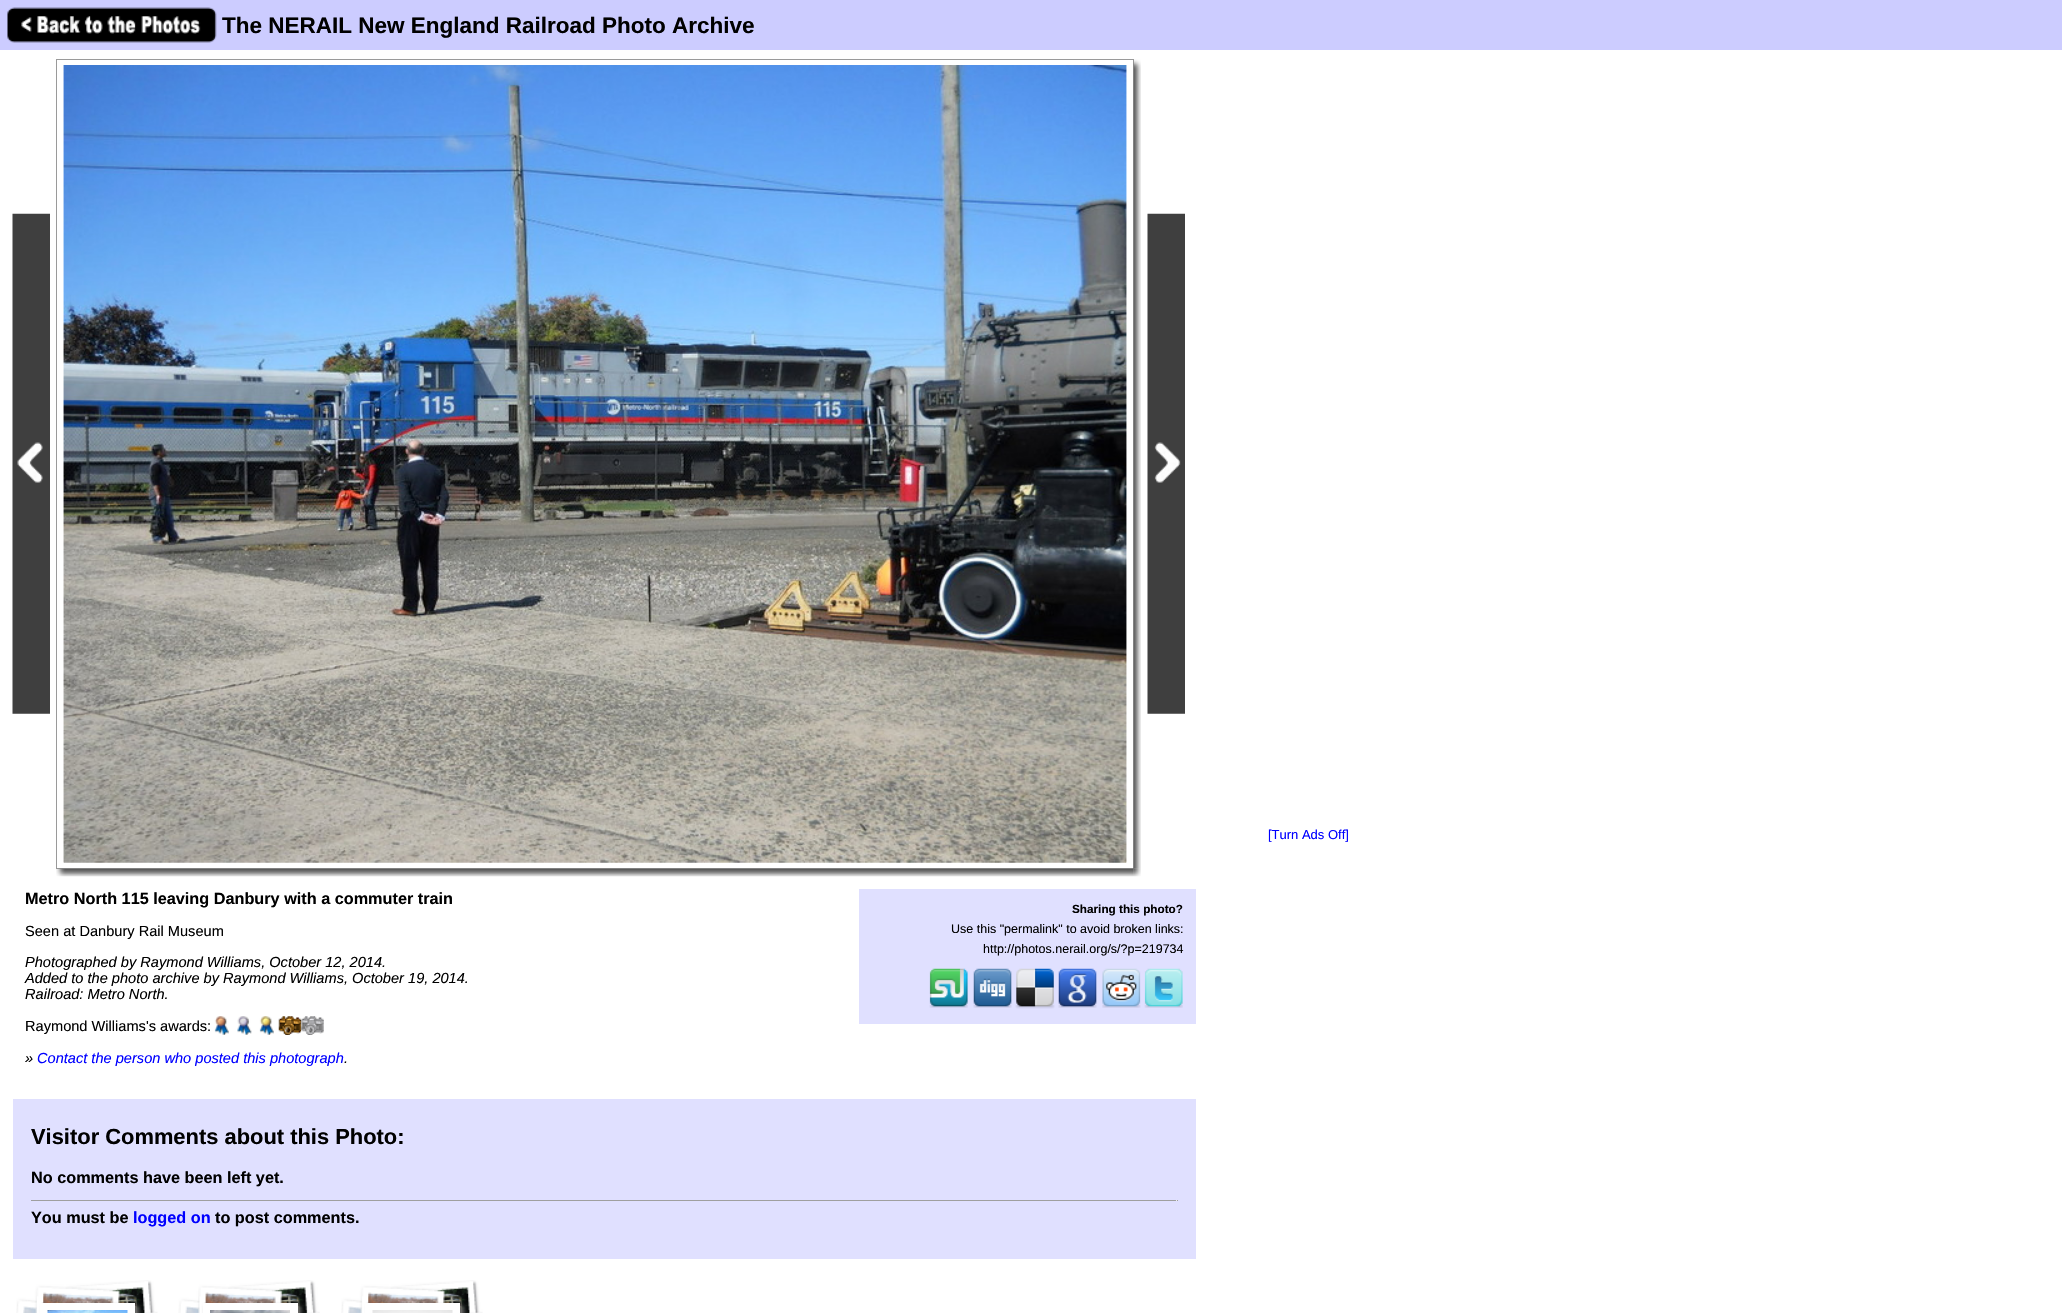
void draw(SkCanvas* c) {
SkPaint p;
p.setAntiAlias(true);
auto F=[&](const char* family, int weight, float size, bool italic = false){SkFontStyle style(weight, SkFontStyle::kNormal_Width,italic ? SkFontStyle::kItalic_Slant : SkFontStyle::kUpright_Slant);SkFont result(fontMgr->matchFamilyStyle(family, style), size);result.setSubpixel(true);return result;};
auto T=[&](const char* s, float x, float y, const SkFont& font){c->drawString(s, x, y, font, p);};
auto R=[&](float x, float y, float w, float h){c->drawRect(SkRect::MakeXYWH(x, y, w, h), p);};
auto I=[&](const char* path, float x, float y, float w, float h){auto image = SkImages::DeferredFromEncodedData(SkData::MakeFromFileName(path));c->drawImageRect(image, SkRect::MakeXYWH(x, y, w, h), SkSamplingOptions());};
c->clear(0xffffffff);
p.setColor(0xffccccff);
R(0,0,2062,50);
I("1.png",7,7,210,36);
auto f1 = F("Liberation Sans",700,22.5);
p.setColor(0xff000000);
T("The NERAIL New England Railroad Photo Archive",222,33,f1);
auto f2 = F("Liberation Sans",400,13);
p.setColor(0xff0000ff);
T("[Turn Ads Off]",1268,839,f2);
I("2.png",12,213,38,501);
p.setStroke(true);
p.setStrokeWidth(1);
p.setColor(0xff9a9a9a);
c->drawRect(SkRect::MakeXYWH(56.5,59.5,1077,809),p);
I("3.png",63,65,1064,798);
I("4.png",63,65,1064,798);
I("5.png",1133,59,8,810);
I("6.png",1147,213,38,501);
I("7.png",56,868,1078,9);
I("8.png",1133,868,8,9);
auto f3 = F("Liberation Sans",700,16.25);
p.setStroke(false);
p.setColor(0xff000000);
T("Metro North 115 leaving Danbury with a commuter train",25,904,f3);
auto f4 = F("Liberation Sans",400,14.6);
T("Seen at Danbury Rail Museum",25,936,f4);
auto f5 = F("Liberation Sans",400,14.6,true);
T("Photographed by Raymond Williams, October 12, 2014.",25,967,f5);
T("Added to the photo archive by Raymond Williams, October 19, 2014.",25,983,f5);
T("Railroad: Metro North.",25,999,f5);
T("Raymond Williams's awards:",25,1031,f4);
I("9.png",214,1016,15,19);
I("10.png",237,1016,15,19);
I("11.png",259,1016,15,19);
I("12.png",278,1016,24,19);
I("13.png",301,1016,23,19);
T("»",25,1063,f5);
p.setColor(0xff0000ff);
T("Contact the person who posted this photograph",37,1063,f5);
p.setColor(0xff000000);
T(".",344,1063,f5);
p.setColor(0xffe0e0ff);
R(859,889,337,135);
auto f6 = F("Liberation Sans",700,11.75);
p.setColor(0xff000000);
T("Sharing this photo?",1072,913,f6);
auto f7 = F("Liberation Sans",400,12.5);
T("Use this \"permalink\" to avoid broken links:",951,933,f7);
T("http://photos.nerail.org/s/?p=219734",983,953,f7);
I("14.png",929,968,39,40);
I("15.png",973,968,39,40);
I("16.png",1015,968,40,41);
I("17.png",1058,968,39,40);
I("18.png",1102,968,39,40);
I("19.png",1144,968,39,40);
p.setColor(0xffe0e0ff);
R(13,1099,1183,160);
auto f8 = F("Liberation Sans",700,21.9);
p.setColor(0xff000000);
T("Visitor Comments about this Photo:",31,1144,f8);
T("No comments have been left yet.",31,1183,f3);
p.setColor(0xff9f9f9f);
R(31,1200,1147,1);
p.setColor(0xffeeeeee);
R(1176,1200,1,1);
p.setColor(0xff000000);
T("You must be",31,1223,f3);
p.setColor(0xff0000ff);
T("logged on",133,1223,f3);
p.setColor(0xff000000);
T("to post comments.",215,1223,f3);
I("20.png",16,1280,142,33);
p.setColor(0xff666666);
p.setMaskFilter(SkMaskFilter::MakeBlur(kNormal_SkBlurStyle, 2));
c->drawRect(SkRect::MakeXYWH(44,1306,95,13),p);
p.setMaskFilter(nullptr);
p.setColor(0xffffffff);
R(40,1303,95,10);
I("21.png",47,1310,81,3);
I("22.png",178,1280,142,33);
p.setColor(0xff666666);
p.setMaskFilter(SkMaskFilter::MakeBlur(kNormal_SkBlurStyle, 2));
c->drawRect(SkRect::MakeXYWH(206,1306,95,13),p);
p.setMaskFilter(nullptr);
p.setColor(0xffffffff);
R(203,1303,95,10);
I("23.png",210,1310,80,3);
I("24.png",341,1280,142,33);
p.setColor(0xff666666);
p.setMaskFilter(SkMaskFilter::MakeBlur(kNormal_SkBlurStyle, 2));
c->drawRect(SkRect::MakeXYWH(369,1306,95,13),p);
p.setMaskFilter(nullptr);
p.setColor(0xffffffff);
R(365,1303,95,10);
I("25.png",372,1310,81,3);
}
